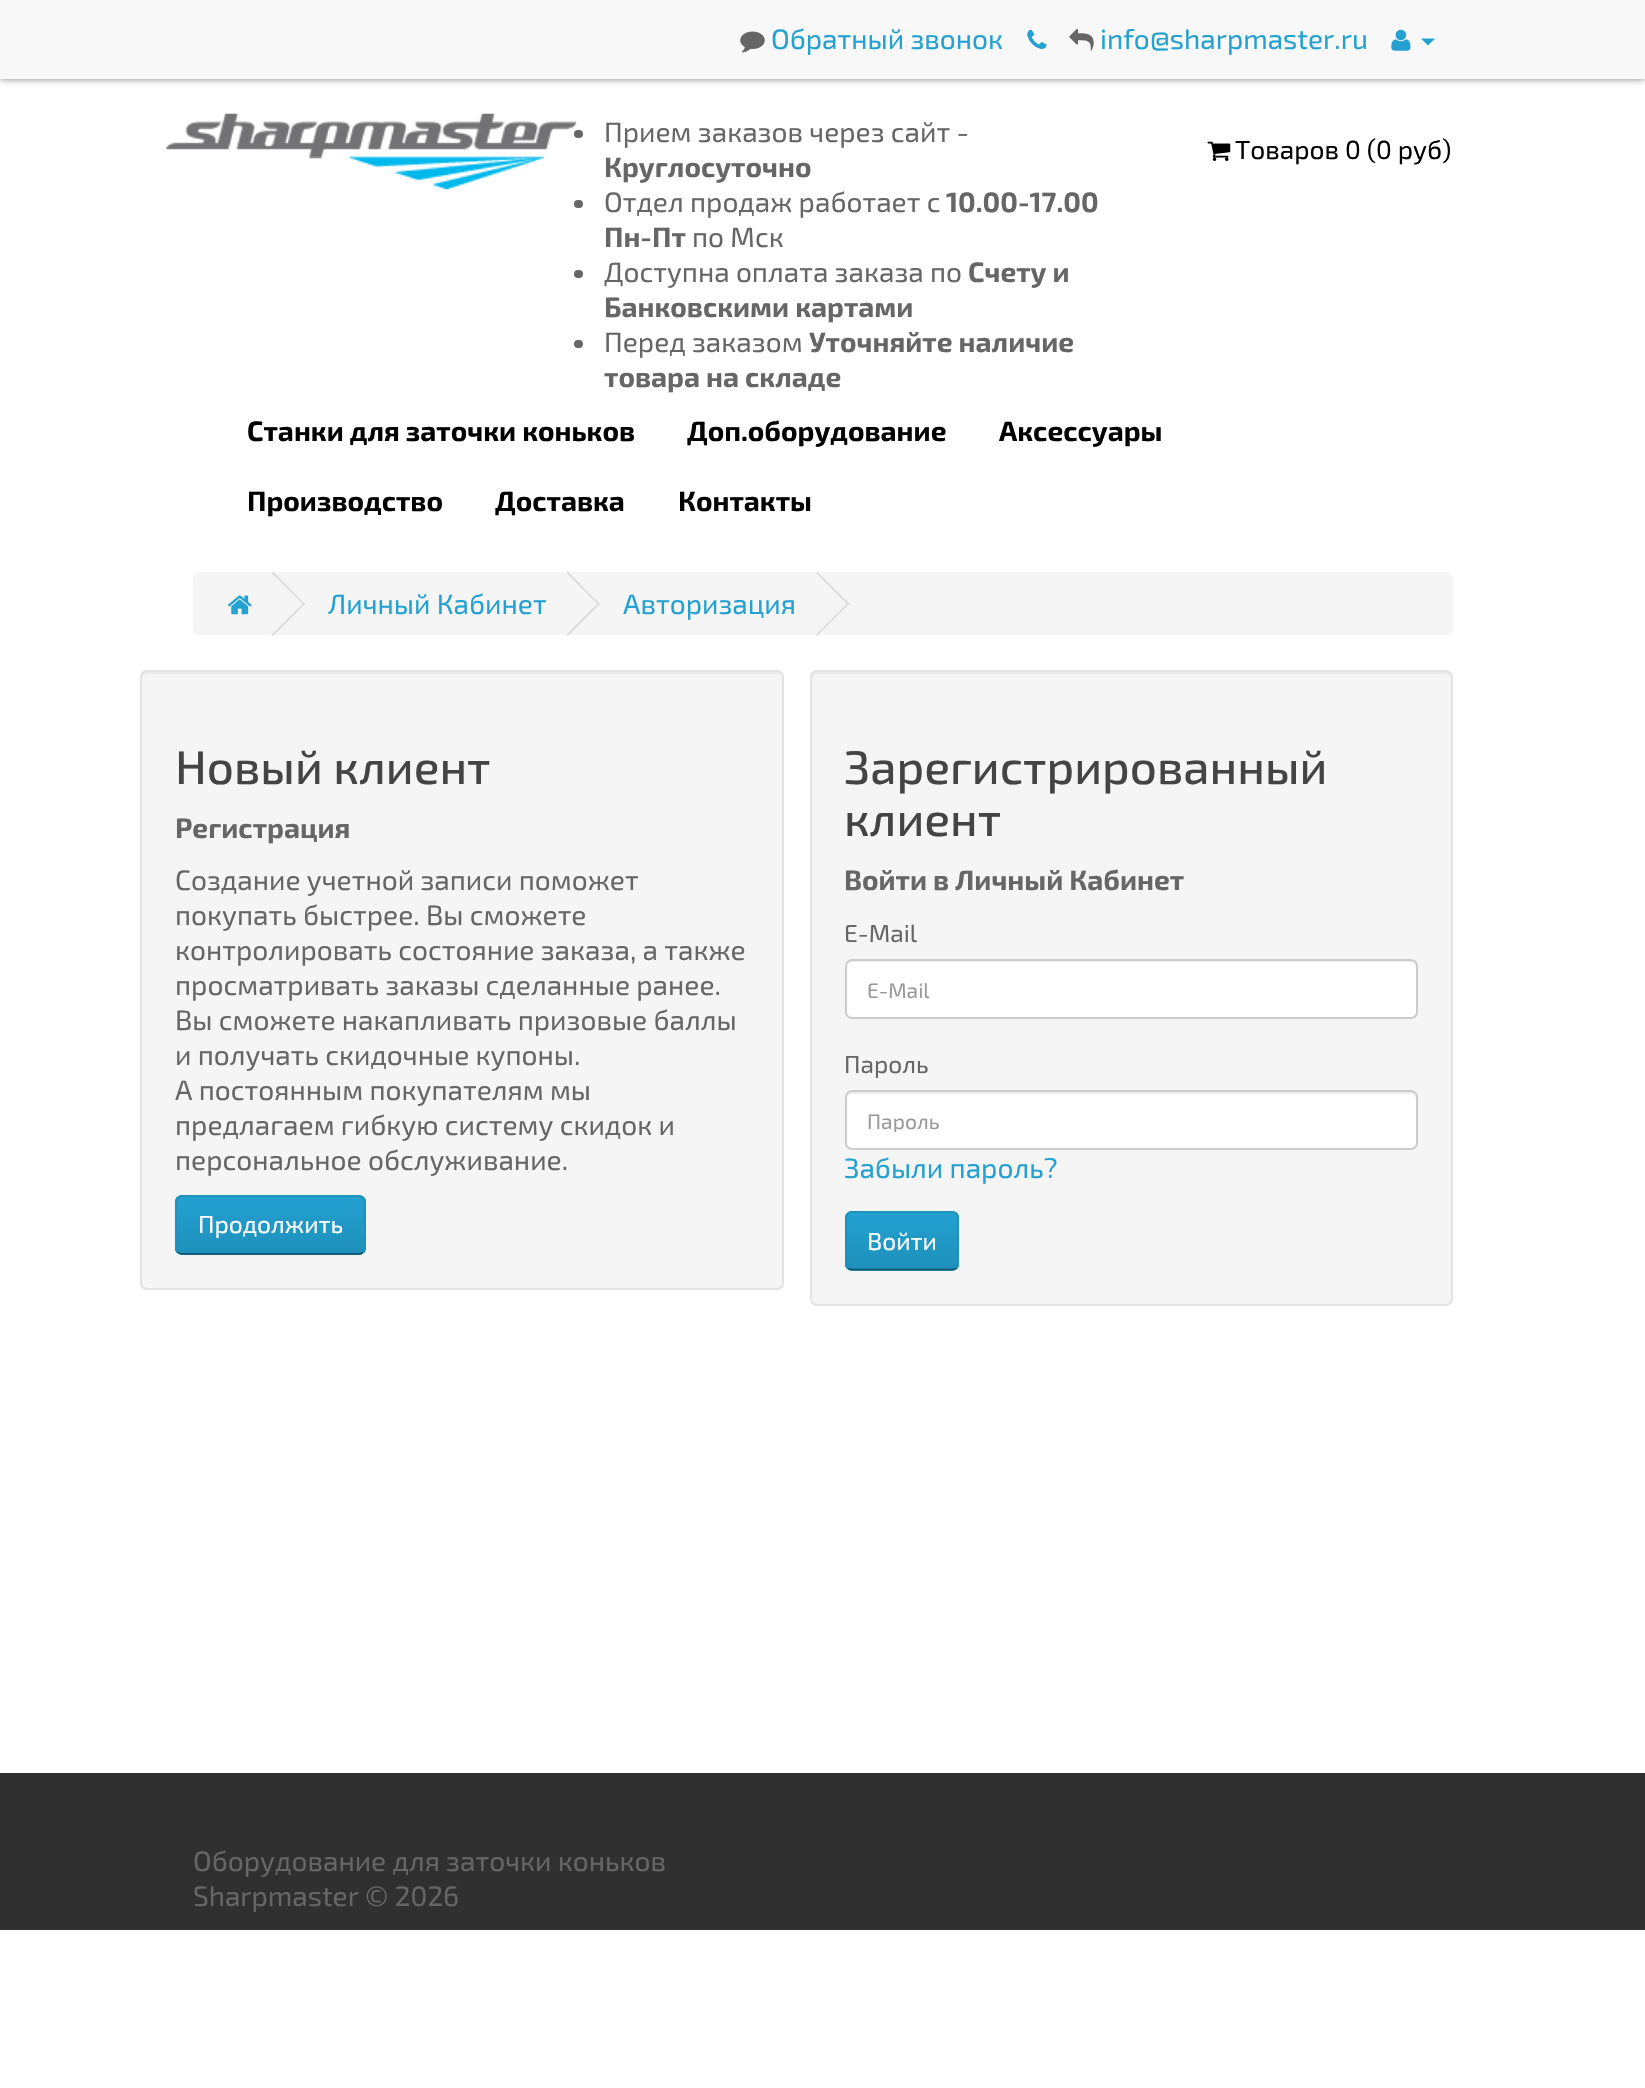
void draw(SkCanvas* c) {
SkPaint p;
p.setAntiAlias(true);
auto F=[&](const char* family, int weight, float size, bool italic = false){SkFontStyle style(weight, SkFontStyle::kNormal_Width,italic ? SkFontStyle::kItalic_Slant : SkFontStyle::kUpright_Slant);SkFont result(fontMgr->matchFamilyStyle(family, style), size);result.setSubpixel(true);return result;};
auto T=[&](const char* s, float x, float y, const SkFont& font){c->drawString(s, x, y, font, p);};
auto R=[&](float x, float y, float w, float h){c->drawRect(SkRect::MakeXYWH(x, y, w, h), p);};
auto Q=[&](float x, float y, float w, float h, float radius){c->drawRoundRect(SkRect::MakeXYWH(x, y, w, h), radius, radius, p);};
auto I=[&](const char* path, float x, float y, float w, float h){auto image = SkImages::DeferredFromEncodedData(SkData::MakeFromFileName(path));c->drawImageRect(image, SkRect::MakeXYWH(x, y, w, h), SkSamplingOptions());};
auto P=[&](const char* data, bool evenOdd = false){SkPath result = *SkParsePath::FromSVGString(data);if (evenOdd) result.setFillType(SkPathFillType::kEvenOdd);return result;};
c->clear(0xffffffff);
p.setColor(0x80000000);
p.setMaskFilter(SkMaskFilter::MakeBlur(kNormal_SkBlurStyle, 3.5));
c->drawRect(SkRect::MakeXYWH(0,0,1645,79),p);
p.setMaskFilter(nullptr);
p.setColor(0xfff8f8f8);
R(0,0,1645,79);
I("1.png",740,31,25,22);
auto f1 = F("Exo 2",400,28);
p.setColor(0xff23a1d1);
T("Обратный звонок",771,49,f1);
I("2.png",1027,29,20,20);
I("3.png",1069,28,25,23);
T("info@sharpmaster.ru",1100,49,f1);
I("4.png",1391,29,20,22);
c->drawPath(P("M1421 38.5h14l-7 7z"),p);
I("5.png",166,113,411,76);
p.setColor(0xff666666);
Q(574,130,9,8,4);
T("Прием заказов через сайт -",604,142,f1);
auto f2 = F("Exo 2",700,28);
T("Круглосуточно",604,177,f2);
Q(574,200,9,8,4);
T("Отдел продаж работает с",604,212,f1);
T("10.00-17.00",946,212,f2);
T("Пн-Пт",604,247,f2);
T("по Мск",692,247,f1);
Q(574,270,9,8,4);
T("Доступна оплата заказа по",604,282,f1);
T("Счету и",968,282,f2);
T("Банковскими картами",604,317,f2);
Q(574,340,9,8,4);
T("Перед заказом",604,352,f1);
T("Уточняйте наличие",809,352,f2);
T("товара на складе",604,387,f2);
I("6.png",1207,141,24,20);
auto f3 = F("Exo 2",400,26.25);
p.setColor(0xff000000);
T("Товаров 0 (0 руб)",1235,159,f3);
T("Станки для заточки коньков",247,441,f2);
T("Доп.оборудование",687,441,f2);
T("Аксессуары",999,441,f2);
T("Производство",247,511,f2);
T("Доставка",495,511,f2);
T("Контакты",678,511,f2);
p.setColor(0xfff5f5f5);
Q(193,572,1260,63,7);
I("7.png",227,595,25,20);
p.setColor(0xffdddddd);
c->drawPath(P("M271.5 573l1.5-1.5l32 32.5l-1 1z"),p);
c->drawPath(P("M271.5 634.5l32.5-32l1 1.5l-32 32z"),p);
p.setColor(0xff23a1d1);
T("Личный Кабинет",328,614,f1);
p.setColor(0xffdddddd);
c->drawPath(P("M566.5 573l1.5-1.5l32 32.5l-1.5 1z"),p);
c->drawPath(P("M566.5 634.5l32-32l1.5 1.5l-32 32z"),p);
p.setColor(0xff23a1d1);
T("Авторизация",623,614,f1);
p.setColor(0xffdddddd);
c->drawPath(P("M816 573l1-1.5l32.5 32l-1.5 1.5z"),p);
c->drawPath(P("M816 634.5l32-32l1.5 1l-32.5 32.5z"),p);
p.setColor(0xfff5f5f5);
Q(140,670,644,620,7);
p.setColor(0xffe9e9e9);
c->drawPath(P("M147 674h630c3 0 5 2 5 5v-2c0-3-2-5-5-5h-630c-3 0-5 2-5 5v2c0-3 2-5 5-5z"),p);
p.setStroke(true);
p.setStrokeWidth(2);
p.setColor(0xffe3e3e3);
c->drawRoundRect(SkRect::MakeXYWH(141,671,642,618),6,6,p);
auto f4 = F("Exo 2",500,47.25);
p.setStroke(false);
p.setColor(0xff444444);
T("Новый клиент",175,784,f4);
p.setColor(0xff666666);
T("Регистрация",175,838,f2);
T("Создание учетной записи поможет",175,890,f1);
T("покупать быстрее. Вы сможете",175,925,f1);
T("контролировать состояние заказа, а также",175,960,f1);
T("просматривать заказы сделанные ранее.",175,995,f1);
T("Вы сможете накапливать призовые баллы",175,1030,f1);
T("и получать скидочные купоны.",175,1065,f1);
T("А постоянным покупателям мы",175,1100,f1);
T("предлагаем гибкую систему скидок и",175,1135,f1);
T("персональное обслуживание.",175,1170,f1);
p.setColor(0xff229ac8);
Q(175,1195,191,60,7);
c->save();
c->clipPath(P("M182 1195h177c4 0 7 3 7 7v46c0 4-3 7-7 7h-177c-4 0-7-3-7-7v-46c0-4 3-7 7-7z"),true);
{
const SkColor colors[] = {0xff23a1d1,0xff1f90bb};
const float stops[] = {0,1};
const SkPoint ends[] = {{270,1197}, {270,1253}};
p.setShader(SkGradientShader::MakeLinear(ends, colors, stops, 2, SkTileMode::kClamp));
p.setAlpha(255);
}
R(175,1197,191,56);
c->restore();
p.setStroke(true);
p.setStrokeWidth(1.8);
p.setShader(nullptr);
p.setColor(0xff145e7a);
c->drawPath(P("M363 1252c-1 1-2.5 2-4 2h-177c-1.5 0-3-1-4.5-2"),p);
p.setColor(0xff1f90bb);
c->drawPath(P("M177.5 1252c-1-1-1.5-2.5-1.5-4v-46c0-1.5 .5-3 1.5-4c1.5-1 3-2 4.5-2h177c1.5 0 3 1 4 2c1 1 2 2.5 2 4v46c0 1.5-1 3-2 4"),p);
auto f5 = F("Exo 2",400,24.5);
p.setStroke(false);
p.setColor(0xffffffff);
T("Продолжить",198,1233,f5);
p.setColor(0xfff5f5f5);
Q(810,670,643,636,7);
p.setColor(0xffe9e9e9);
c->drawPath(P("M817 674h629c2 0 5 2 5 5v-2c0-3-2-5-5-5h-629c-3 0-5 2-5 5v2c0-3 2-5 5-5z"),p);
p.setStroke(true);
p.setStrokeWidth(2);
p.setColor(0xffe3e3e3);
c->drawRoundRect(SkRect::MakeXYWH(811,671,641,634),6,6,p);
p.setStroke(false);
p.setColor(0xff444444);
T("Зарегистрированный",844,784,f4);
T("клиент",844,836,f4);
p.setColor(0xff666666);
T("Войти в Личный Кабинет",844,890,f2);
T("E-Mail",844,942,f5);
p.setColor(0xffffffff);
Q(845,959,573,60,7);
p.setColor(0xffececec);
c->drawPath(P("M852 962h558c3 0 6 3 6 6v-2c0-3-2-5-5-5h-559c-3 0-5 2-5 5v2c0-3 2-6 5-6z"),p);
p.setStroke(true);
p.setColor(0xffcccccc);
c->drawRoundRect(SkRect::MakeXYWH(846,960,571,58),6,6,p);
auto f6 = F("Exo 2",400,21);
p.setStroke(false);
p.setColor(0xff999999);
T("E-Mail",867,998,f6);
p.setColor(0xff666666);
T("Пароль",844,1073,f5);
p.setColor(0xffffffff);
Q(845,1090,573,60,7);
p.setColor(0xffececec);
c->drawPath(P("M852 1094h558c3 0 6 2 6 5v-2c0-3-2-5-5-5h-559c-3 0-5 2-5 5v2c0-3 2-5 5-5z"),p);
p.setStroke(true);
p.setColor(0xffcccccc);
c->drawRoundRect(SkRect::MakeXYWH(846,1091,571,58),6,6,p);
c->save();
c->clipRect(SkRect::MakeXYWH(868,1108,527,24));
p.setStroke(false);
p.setColor(0xff999999);
T("Пароль",867,1129,f6);
c->restore();
p.setColor(0xff23a1d1);
T("Забыли пароль?",844,1178,f1);
p.setColor(0xff229ac8);
Q(845,1211,114,60,7);
c->save();
c->clipPath(P("M852 1211h100c4 0 7 3 7 7v46c0 4-3 7-7 7h-100c-4 0-7-3-7-7v-46c0-4 3-7 7-7z"),true);
{
const SkColor colors[] = {0xff23a1d1,0xff1f90bb};
const float stops[] = {0,1};
const SkPoint ends[] = {{902,1213}, {902,1269}};
p.setShader(SkGradientShader::MakeLinear(ends, colors, stops, 2, SkTileMode::kClamp));
p.setAlpha(255);
}
R(845,1213,114,56);
c->restore();
p.setStroke(true);
p.setStrokeWidth(1.8);
p.setShader(nullptr);
p.setColor(0xff145e7a);
c->drawPath(P("M956.5 1268c-1.5 1-3 1.5-4.5 1.5h-100c-1.5 0-3-.5-4-1.5"),p);
p.setColor(0xff1f90bb);
c->drawPath(P("M848 1268c-1-1.5-2-3-2-4.5v-45.5c0-1.5 1-3 2-4.5c1-1 2.5-1.5 4-1.5h100c1.5 0 3 .5 4.5 1.5c1 1.5 1.5 3 1.5 4.5v45.5c0 1.5-.5 3-1.5 4.5"),p);
p.setStroke(false);
p.setColor(0xffffffff);
T("Войти",867,1250,f5);
p.setColor(0xff303030);
R(0,1773,1645,157);
p.setColor(0xff666666);
T("Оборудование для заточки коньков",193,1871,f1);
T("Sharpmaster © 2026",193,1906,f1);
}
